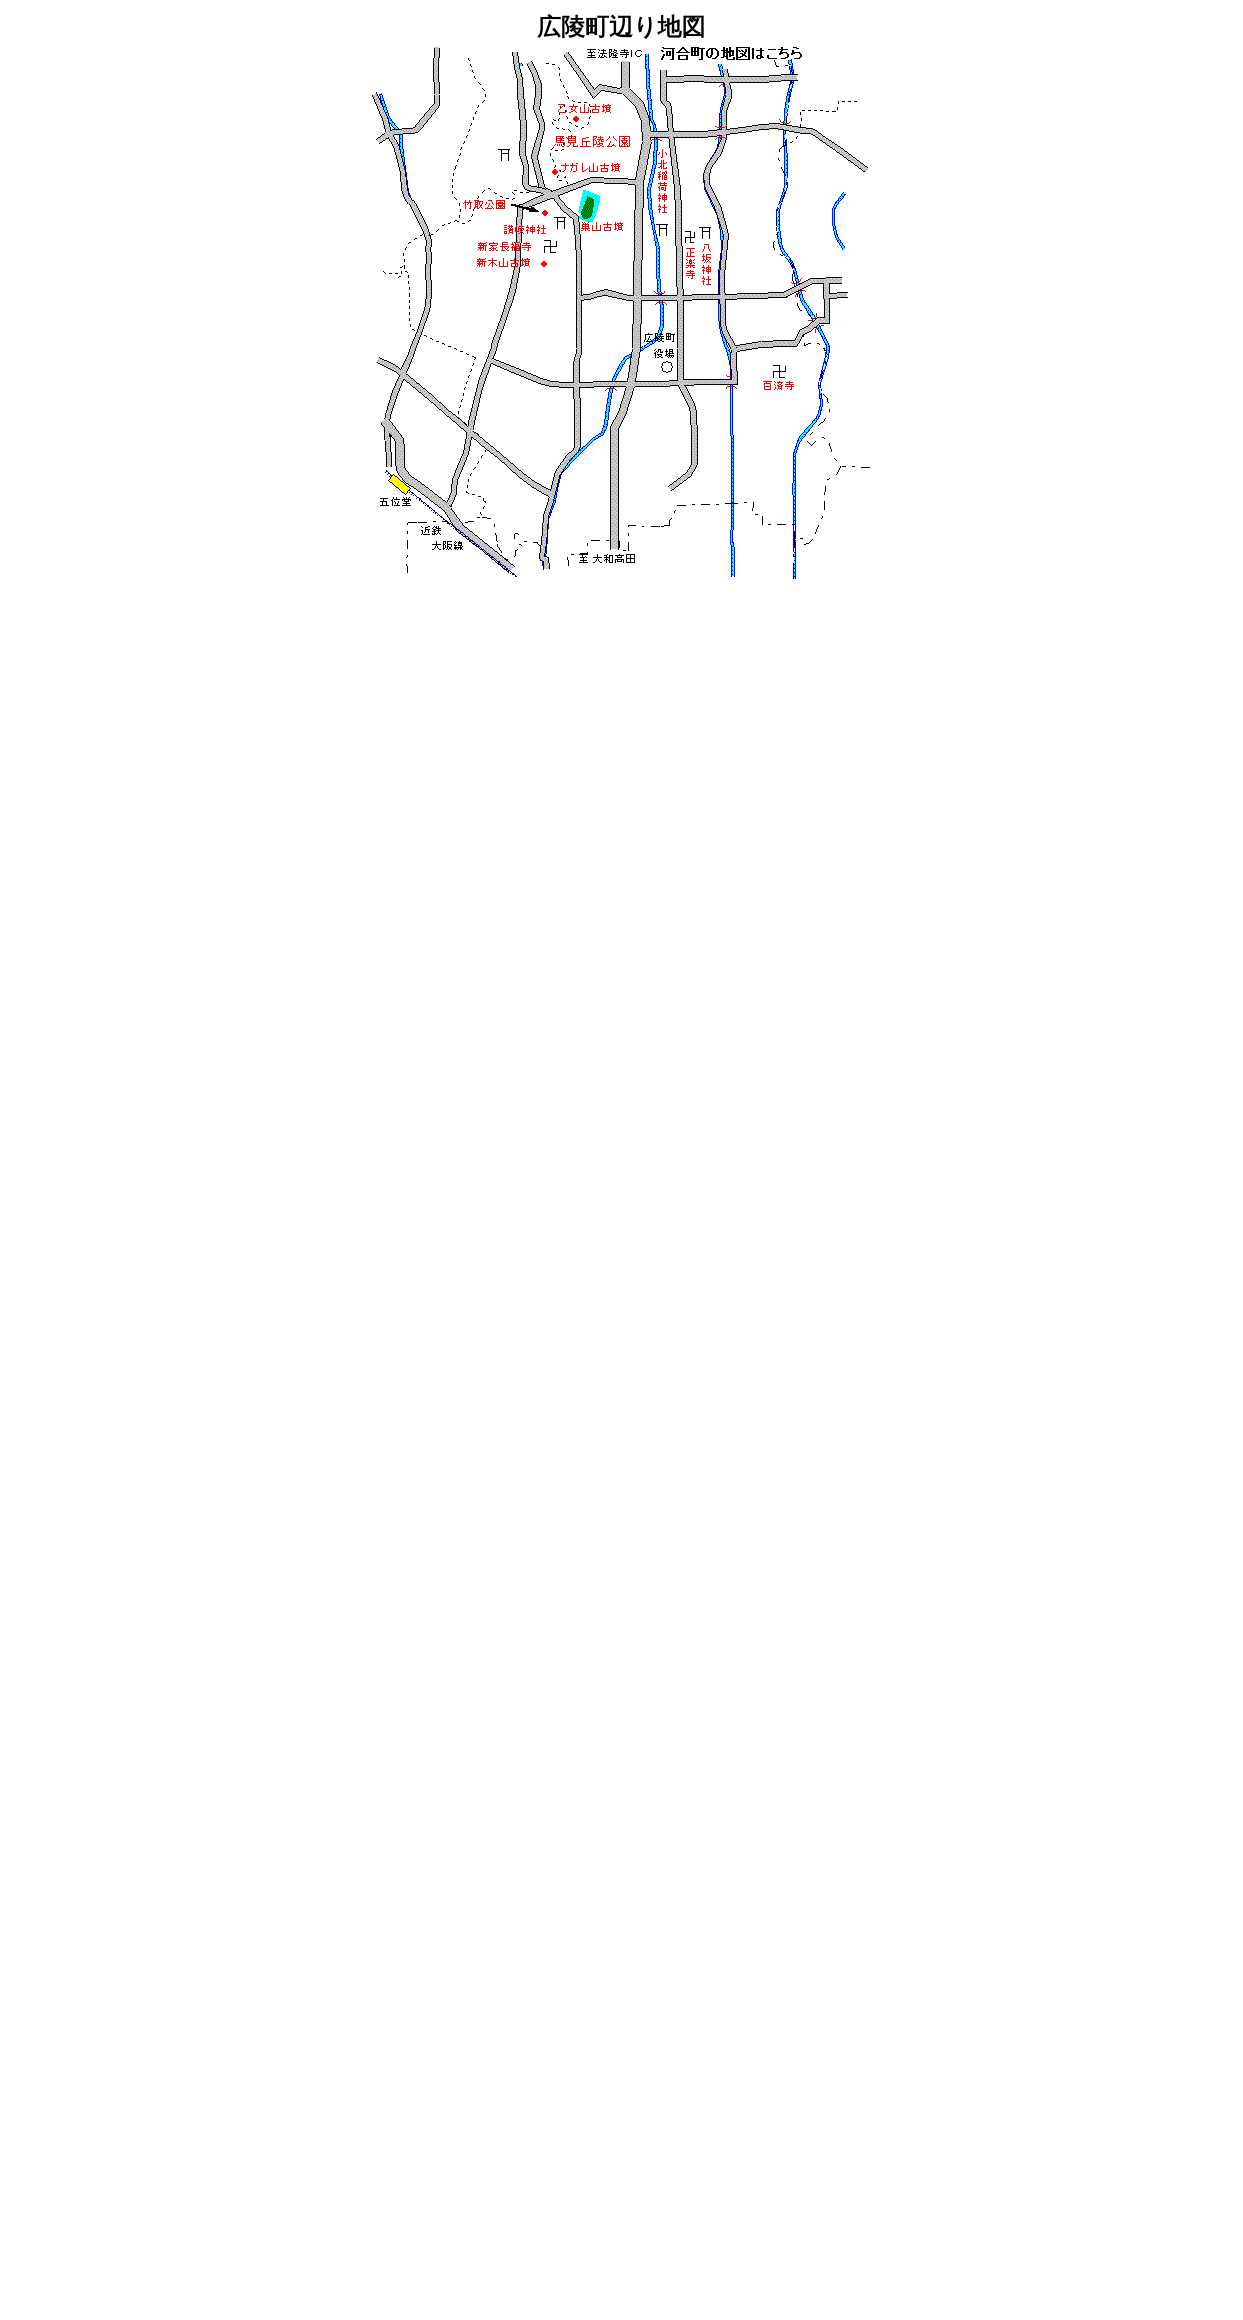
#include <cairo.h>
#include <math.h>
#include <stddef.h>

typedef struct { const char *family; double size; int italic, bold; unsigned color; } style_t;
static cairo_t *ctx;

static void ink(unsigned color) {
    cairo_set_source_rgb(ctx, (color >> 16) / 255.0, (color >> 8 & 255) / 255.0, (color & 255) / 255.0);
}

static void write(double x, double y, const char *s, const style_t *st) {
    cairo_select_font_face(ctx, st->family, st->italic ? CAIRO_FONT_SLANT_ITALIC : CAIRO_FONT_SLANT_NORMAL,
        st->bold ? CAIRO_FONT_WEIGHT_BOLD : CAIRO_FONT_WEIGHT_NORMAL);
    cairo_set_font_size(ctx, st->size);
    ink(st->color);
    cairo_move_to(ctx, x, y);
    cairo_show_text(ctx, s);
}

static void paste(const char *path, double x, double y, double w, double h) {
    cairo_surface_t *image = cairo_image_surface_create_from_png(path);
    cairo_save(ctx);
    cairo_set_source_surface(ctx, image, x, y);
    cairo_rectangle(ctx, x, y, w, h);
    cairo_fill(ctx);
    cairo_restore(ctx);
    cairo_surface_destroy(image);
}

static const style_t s1 = {"WenQuanYi Zen Hei", 24, 0, 1, 0x000000};

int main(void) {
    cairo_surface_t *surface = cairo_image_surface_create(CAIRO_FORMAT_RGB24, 1243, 2320);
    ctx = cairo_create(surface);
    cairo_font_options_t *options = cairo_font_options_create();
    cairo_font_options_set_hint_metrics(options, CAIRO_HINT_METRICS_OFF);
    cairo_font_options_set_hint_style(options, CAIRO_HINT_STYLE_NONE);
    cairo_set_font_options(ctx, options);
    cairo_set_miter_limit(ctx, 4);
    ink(0xffffff);
    cairo_paint(ctx);
    write(537, 35, "広陵町辺り地図", &s1);
    paste("pic1.png", 372, 47, 498, 532);
    cairo_surface_write_to_png(surface, "screenshot.png");
    cairo_font_options_destroy(options);
    cairo_destroy(ctx);
    cairo_surface_destroy(surface);
    return 0;
}
